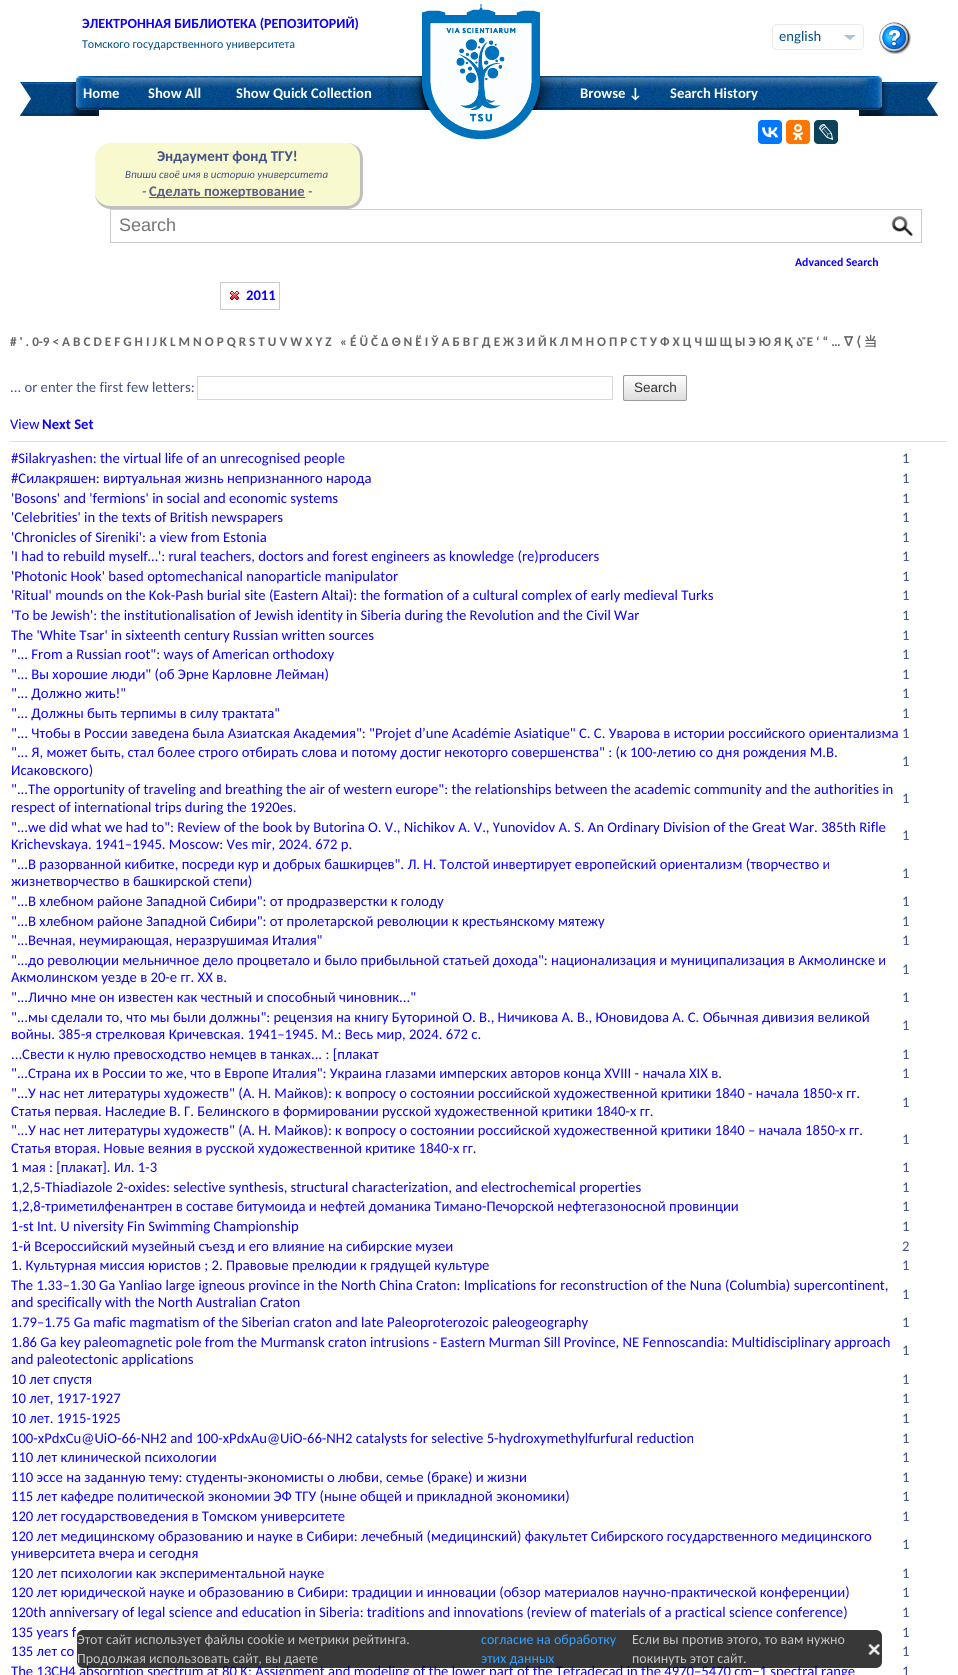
#include <cairo.h>
#include <math.h>
#include <stddef.h>

typedef struct { const char *family; double size; int italic, bold; unsigned color; } style_t;
static cairo_t *ctx;

static void ink(unsigned color) {
    cairo_set_source_rgb(ctx, (color >> 16) / 255.0, (color >> 8 & 255) / 255.0, (color & 255) / 255.0);
}

static void write(double x, double y, const char *s, const style_t *st) {
    cairo_select_font_face(ctx, st->family, st->italic ? CAIRO_FONT_SLANT_ITALIC : CAIRO_FONT_SLANT_NORMAL,
        st->bold ? CAIRO_FONT_WEIGHT_BOLD : CAIRO_FONT_WEIGHT_NORMAL);
    cairo_set_font_size(ctx, st->size);
    ink(st->color);
    cairo_move_to(ctx, x, y);
    cairo_show_text(ctx, s);
}

static void block(double x, double y, double w, double h, unsigned color) {
    ink(color);
    cairo_rectangle(ctx, x, y, w, h);
    cairo_fill(ctx);
}

static void round_path(double x, double y, double w, double h, double r) {
    cairo_new_sub_path(ctx);
    cairo_arc(ctx, x + w - r, y + h - r, r, 0, M_PI / 2);
    cairo_arc(ctx, x + r, y + h - r, r, M_PI / 2, M_PI);
    cairo_arc(ctx, x + r, y + r, r, M_PI, 1.5 * M_PI);
    cairo_arc(ctx, x + w - r, y + r, r, 1.5 * M_PI, 2 * M_PI);
    cairo_close_path(ctx);
}

static void paste(const char *path, double x, double y, double w, double h) {
    cairo_surface_t *image = cairo_image_surface_create_from_png(path);
    cairo_save(ctx);
    cairo_set_source_surface(ctx, image, x, y);
    cairo_rectangle(ctx, x, y, w, h);
    cairo_fill(ctx);
    cairo_restore(ctx);
    cairo_surface_destroy(image);
}

static const style_t s1 = {"Carlito", 14, 0, 1, 0x0c00ff};
static const style_t s2 = {"Carlito", 12, 0, 0, 0x004e8b};
static const style_t s3 = {"Carlito", 14.67, 0, 0, 0x004e8b};
static const style_t s4 = {"Carlito", 14.67, 0, 1, 0xffffff};
static const style_t s5 = {"Carlito", 15, 0, 1, 0x405286};
static const style_t s6 = {"Carlito", 11, 1, 0, 0x405286};
static const style_t s7 = {"Carlito", 14.67, 0, 0, 0x405286};
static const style_t s8 = {"Carlito", 14.67, 0, 1, 0x5d5d86};
static const style_t s9 = {"Liberation Sans", 18, 0, 0, 0x757575};
static const style_t s10 = {"Carlito", 11.75, 0, 1, 0x0c00ff};
static const style_t s11 = {"Carlito", 14.67, 0, 1, 0x0c00ff};
static const style_t s12 = {"Carlito", 13.2, 0, 1, 0x666666};
static const style_t s13 = {"DejaVu Sans", 13.2, 0, 1, 0x666666};
static const style_t s14 = {"WenQuanYi Zen Hei", 13.2, 0, 1, 0x666666};
static const style_t s15 = {"Liberation Sans", 13.5, 0, 0, 0x333333};
static const style_t s16 = {"Carlito", 14.67, 0, 0, 0x0c00ff};
static const style_t s17 = {"Carlito", 14, 0, 0, 0xc7c7c7};
static const style_t s18 = {"Carlito", 14, 0, 0, 0x34a0ff};

int main(void) {
    cairo_surface_t *surface = cairo_image_surface_create(CAIRO_FORMAT_RGB24, 958, 1675);
    ctx = cairo_create(surface);
    cairo_font_options_t *options = cairo_font_options_create();
    cairo_font_options_set_hint_metrics(options, CAIRO_HINT_METRICS_OFF);
    cairo_font_options_set_hint_style(options, CAIRO_HINT_STYLE_NONE);
    cairo_set_font_options(ctx, options);
    cairo_set_miter_limit(ctx, 4);
    cairo_pattern_t *gradient;
    ink(0xffffff);
    cairo_paint(ctx);
    write(82, 28, "ЭЛЕКТРОННАЯ БИБЛИОТЕКА (РЕПОЗИТОРИЙ)", &s1);
    write(82, 48, "Томского государственного университета", &s2);
    round_path(772.5, 24.5, 91, 25, 4.5);
    ink(0xebe9e9);
    cairo_set_line_width(ctx, 1);
    cairo_stroke(ctx);
    paste("pic1.png", 844, 35, 12, 5);
    write(779, 41, "english", &s3);
    paste("pic2.png", 879, 22, 32, 32);
    paste("pic3.png", 20, 76, 95, 40);
    paste("pic4.png", 115, 76, 728, 34);
    write(83, 98, "Home", &s4);
    write(148, 98, "Show All", &s4);
    write(236, 98, "Show Quick Collection", &s4);
    paste("pic5.png", 388, 4, 183, 135);
    write(580, 98, "Browse ↓", &s4);
    write(670, 98, "Search History", &s4);
    paste("pic6.png", 843, 76, 95, 40);
    ink(0xf9f9d0);
    cairo_new_path(ctx);
    cairo_move_to(ctx, 111, 143);
    cairo_line_to(ctx, 347, 143);
    cairo_curve_to(ctx, 354, 143, 360, 150, 360, 159);
    cairo_line_to(ctx, 360, 193);
    cairo_curve_to(ctx, 360, 200, 354, 206, 347, 206);
    cairo_line_to(ctx, 111, 206);
    cairo_curve_to(ctx, 102, 206, 95, 200, 95, 193);
    cairo_line_to(ctx, 95, 159);
    cairo_curve_to(ctx, 95, 150, 102, 143, 111, 143);
    cairo_close_path(ctx);
    cairo_fill(ctx);
    ink(0xc0c0c0);
    cairo_set_fill_rule(ctx, CAIRO_FILL_RULE_EVEN_ODD);
    cairo_new_path(ctx);
    cairo_move_to(ctx, 111, 143);
    cairo_line_to(ctx, 347, 143);
    cairo_curve_to(ctx, 356, 143, 363, 150, 363, 159);
    cairo_line_to(ctx, 363, 193);
    cairo_curve_to(ctx, 363, 202, 356, 209, 347, 209);
    cairo_line_to(ctx, 111, 209);
    cairo_curve_to(ctx, 102, 209, 95, 202, 95, 193);
    cairo_line_to(ctx, 95, 159);
    cairo_curve_to(ctx, 95, 150, 102, 143, 111, 143);
    cairo_close_path(ctx);
    cairo_move_to(ctx, 111, 143);
    cairo_line_to(ctx, 347, 143);
    cairo_curve_to(ctx, 354, 143, 360, 150, 360, 159);
    cairo_line_to(ctx, 360, 193);
    cairo_curve_to(ctx, 360, 200, 354, 206, 347, 206);
    cairo_line_to(ctx, 111, 206);
    cairo_curve_to(ctx, 102, 206, 95, 200, 95, 193);
    cairo_line_to(ctx, 95, 159);
    cairo_curve_to(ctx, 95, 150, 102, 143, 111, 143);
    cairo_close_path(ctx);
    cairo_fill(ctx);
    write(157, 161, "Эндаумент фонд ТГУ!", &s5);
    write(125, 178, "Впиши своё имя в историю университета", &s6);
    write(142, 196, "-", &s7);
    block(149, 197, 156, 1, 0x5d5d86);
    write(149, 196, "Сделать пожертвование", &s8);
    write(308, 196, "-", &s7);
    cairo_rectangle(ctx, 110.5, 209.5, 811, 33);
    ink(0xcccccc);
    cairo_stroke(ctx);
    write(119, 231, "Search", &s9);
    paste("pic7.png", 891, 216, 22, 20);
    write(795, 266, "Advanced Search", &s10);
    cairo_rectangle(ctx, 220.5, 282.5, 59, 27);
    ink(0xcccccc);
    cairo_stroke(ctx);
    paste("pic8.png", 230, 291, 9, 9);
    write(246, 300, "2011", &s11);
    ink(0x0077ff);
    round_path(758, 120, 24, 24, 4);
    cairo_fill(ctx);
    paste("pic9.png", 762, 127, 16, 11);
    ink(0xff7700);
    round_path(786, 120, 24, 24, 4);
    cairo_fill(ctx);
    paste("pic10.png", 792, 124, 12, 16);
    ink(0x0d425a);
    round_path(814, 120, 24, 24, 4);
    cairo_fill(ctx);
    paste("pic11.png", 819, 124, 15, 16);
    write(10, 346, "# ' . 0-9 < A B C D E F G H I J K L M N O P Q R S T U V W X Y Z", &s12);
    write(340, 346, "« É Ü Č Δ Θ Ν Ё І Ў А Б В Г Д Е Ж З И Й К Л М Н О П Р С Т У Ф Х Ц Ч Ш Щ Ы Э Ю Я Қ", &s12);
    write(796, 346, "ა", &s13);
    write(805, 346, "Ἔ ‘ “ …", &s12);
    write(844, 346, "∇", &s13);
    write(856, 346, "⟨", &s13);
    write(864, 346, "当", &s14);
    write(10, 392, "... or enter the first few letters:", &s7);
    cairo_rectangle(ctx, 197.5, 376.5, 415, 23);
    ink(0xd7d7d7);
    cairo_stroke(ctx);
    cairo_save(ctx);
    cairo_set_fill_rule(ctx, CAIRO_FILL_RULE_WINDING);
    round_path(623, 375, 64, 26, 2);
    cairo_clip(ctx);
    gradient = cairo_pattern_create_linear(624, 376, 624, 400);
    cairo_pattern_add_color_stop_rgba(gradient, 0, 1, 1, 1, 1);
    cairo_pattern_add_color_stop_rgba(gradient, 1, 0.867, 0.867, 0.867, 1);
    cairo_set_source(ctx, gradient);
    cairo_pattern_destroy(gradient);
    cairo_rectangle(ctx, 623, 376, 64, 24);
    cairo_fill(ctx);
    cairo_restore(ctx);
    round_path(623.5, 375.5, 63, 25, 1.5);
    ink(0x999999);
    cairo_stroke(ctx);
    write(634, 392, "Search", &s15);
    write(10, 429, "View", &s16);
    write(42, 429, "Next Set", &s11);
    block(10, 441, 937, 1, 0xe0e0e0);
    write(11, 463, "#Silakryashen: the virtual life of an unrecognised people", &s16);
    write(902, 463, "1", &s7);
    write(11, 483, "#Силакряшен: виртуальная жизнь непризнанного народа", &s16);
    write(902, 483, "1", &s7);
    write(11, 503, "'Bosons' and 'fermions' in social and economic systems", &s16);
    write(902, 503, "1", &s7);
    write(11, 522, "'Celebrities' in the texts of British newspapers", &s16);
    write(902, 522, "1", &s7);
    write(11, 542, "'Chronicles of Sireniki': a view from Estonia", &s16);
    write(902, 542, "1", &s7);
    write(11, 561, "'I had to rebuild myself…': rural teachers, doctors and forest engineers as knowledge (re)producers", &s16);
    write(902, 561, "1", &s7);
    write(11, 581, "'Photonic Hook' based optomechanical nanoparticle manipulator", &s16);
    write(902, 581, "1", &s7);
    write(11, 600, "'Ritual' mounds on the Kok-Pash burial site (Eastern Altai): the formation of a cultural complex of early medieval Turks", &s16);
    write(902, 600, "1", &s7);
    write(11, 620, "'To be Jewish': the institutionalisation of Jewish identity in Siberia during the Revolution and the Civil War", &s16);
    write(902, 620, "1", &s7);
    write(11, 640, "The 'White Tsar' in sixteenth century Russian written sources", &s16);
    write(902, 640, "1", &s7);
    write(11, 659, "\"... From a Russian root\": ways of American orthodoxy", &s16);
    write(902, 659, "1", &s7);
    write(11, 679, "\"... Вы хорошие люди\" (об Эрне Карловне Лейман)", &s16);
    write(902, 679, "1", &s7);
    write(11, 698, "\"... Должно жить!\"", &s16);
    write(902, 698, "1", &s7);
    write(11, 718, "\"... Должны быть терпимы в силу трактата\"", &s16);
    write(902, 718, "1", &s7);
    write(11, 738, "\"... Чтобы в России заведена была Азиатская Академия\": \"Projet d’une Académie Asiatique\" С. С. Уварова в истории российского ориентализма", &s16);
    write(902, 738, "1", &s7);
    write(11, 757, "\"... Я, может быть, стал более строго отбирать слова и потому достиг некоторго совершенства\" : (к 100-летию со дня рождения М.В.", &s16);
    write(11, 775, "Исаковского)", &s16);
    write(902, 766, "1", &s7);
    write(11, 794, "\"...The opportunity of traveling and breathing the air of western europe\": the relationships between the academic community and the authorities in", &s16);
    write(11, 812, "respect of international trips during the 1920es.", &s16);
    write(902, 803, "1", &s7);
    write(11, 832, "\"...we did what we had to\": Review of the book by Butorina O. V., Nichikov A. V., Yunovidov A. S. An Ordinary Division of the Great War. 385th Rifle", &s16);
    write(11, 849, "Krichevskaya. 1941–1945. Moscow: Ves mir, 2024. 672 p.", &s16);
    write(902, 840, "1", &s7);
    write(11, 869, "\"...В разорванной кибитке, посреди кур и добрых башкирцев\". Л. Н. Толстой инвертирует европейский ориентализм (творчество и", &s16);
    write(11, 886, "жизнетворчество в башкирской степи)", &s16);
    write(902, 878, "1", &s7);
    write(11, 906, "\"...В хлебном районе Западной Сибири\": от продразверстки к голоду", &s16);
    write(902, 906, "1", &s7);
    write(11, 926, "\"...В хлебном районе Западной Сибири\": от пролетарской революции к крестьянскому мятежу", &s16);
    write(902, 926, "1", &s7);
    write(11, 945, "\"...Вечная, неумирающая, неразрушимая Италия\"", &s16);
    write(902, 945, "1", &s7);
    write(11, 965, "\"...до революции мельничное дело процветало и было прибыльной статьей дохода\": национализация и муниципализация в Акмолинске и", &s16);
    write(11, 982, "Акмолинском уезде в 20-е гг. ХХ в.", &s16);
    write(902, 974, "1", &s7);
    write(11, 1002, "\"...Лично мне он известен как честный и способный чиновник...\"", &s16);
    write(902, 1002, "1", &s7);
    write(11, 1022, "\"...мы сделали то, что мы были должны\": рецензия на книгу Буториной О. В., Ничикова А. В., Юновидова А. С. Обычная дивизия великой", &s16);
    write(11, 1039, "войны. 385-я стрелковая Кричевская. 1941–1945. М.: Весь мир, 2024. 672 с.", &s16);
    write(902, 1030, "1", &s7);
    write(11, 1059, "...Свести к нулю превосходство немцев в танках... : [плакат", &s16);
    write(902, 1059, "1", &s7);
    write(11, 1078, "\"...Страна их в России то же, что в Европе Италия\": Украина глазами имперских авторов конца XVIII - начала XIX в.", &s16);
    write(902, 1078, "1", &s7);
    write(11, 1098, "\"...У нас нет литературы художеств\" (А. Н. Майков): к вопросу о состоянии российской художественной критики 1840 - начала 1850-х гг.", &s16);
    write(11, 1116, "Статья первая. Наследие В. Г. Белинского в формировании русской художественной критики 1840-х гг.", &s16);
    write(902, 1107, "1", &s7);
    write(11, 1135, "\"...У нас нет литературы художеств\" (А. Н. Майков): к вопросу о состоянии российской художественной критики 1840 – начала 1850-х гг.", &s16);
    write(11, 1153, "Статья вторая. Новые веяния в русской художественной критике 1840-х гг.", &s16);
    write(902, 1144, "1", &s7);
    write(11, 1172, "1 мая : [плакат]. Ил. 1-3", &s16);
    write(902, 1172, "1", &s7);
    write(11, 1192, "1,2,5-Thiadiazole 2-oxides: selective synthesis, structural characterization, and electrochemical properties", &s16);
    write(902, 1192, "1", &s7);
    write(11, 1211, "1,2,8-триметилфенантрен в составе битумоида и нефтей доманика Тимано-Печорской нефтегазоносной провинции", &s16);
    write(902, 1211, "1", &s7);
    write(11, 1231, "1-st Int. U niversity Fin Swimming Championship", &s16);
    write(902, 1231, "1", &s7);
    write(11, 1251, "1-й Всероссийский музейный съезд и его влияние на сибирские музеи", &s16);
    write(902, 1251, "2", &s7);
    write(11, 1270, "1. Культурная миссия юристов ; 2. Правовые прелюдии к грядущей культуре", &s16);
    write(902, 1270, "1", &s7);
    write(11, 1290, "The 1.33–1.30 Ga Yanliao large igneous province in the North China Craton: Implications for reconstruction of the Nuna (Columbia) supercontinent,", &s16);
    write(11, 1307, "and specifically with the North Australian Craton", &s16);
    write(902, 1299, "1", &s7);
    write(11, 1327, "1.79–1.75 Ga mafic magmatism of the Siberian craton and late Paleoproterozoic paleogeography", &s16);
    write(902, 1327, "1", &s7);
    write(11, 1347, "1.86 Ga key paleomagnetic pole from the Murmansk craton intrusions - Eastern Murman Sill Province, NE Fennoscandia: Multidisciplinary approach", &s16);
    write(11, 1364, "and paleotectonic applications", &s16);
    write(902, 1355, "1", &s7);
    write(11, 1384, "10 лет спустя", &s16);
    write(902, 1384, "1", &s7);
    write(11, 1403, "10 лет, 1917-1927", &s16);
    write(902, 1403, "1", &s7);
    write(11, 1423, "10 лет. 1915-1925", &s16);
    write(902, 1423, "1", &s7);
    write(11, 1443, "100-xPdxCu@UiO-66-NH2 and 100-xPdxAu@UiO-66-NH2 catalysts for selective 5-hydroxymethylfurfural reduction", &s16);
    write(902, 1443, "1", &s7);
    write(11, 1462, "110 лет клинической психологии", &s16);
    write(902, 1462, "1", &s7);
    write(11, 1482, "110 эссе на заданную тему: студенты-экономисты о любви, семье (браке) и жизни", &s16);
    write(902, 1482, "1", &s7);
    write(11, 1501, "115 лет кафедре политической экономии ЭФ ТГУ (ныне общей и прикладной экономики)", &s16);
    write(902, 1501, "1", &s7);
    write(11, 1521, "120 лет государствоведения в Томском университете", &s16);
    write(902, 1521, "1", &s7);
    write(11, 1541, "120 лет медицинскому образованию и науке в Сибири: лечебный (медицинский) факультет Сибирского государственного медицинского", &s16);
    write(11, 1558, "университета вчера и сегодня", &s16);
    write(902, 1549, "1", &s7);
    write(11, 1578, "120 лет психологии как экспериментальной науке", &s16);
    write(902, 1578, "1", &s7);
    write(11, 1597, "120 лет юридической науке и образованию в Сибири: традиции и инновации (обзор материалов научно-практической конференции)", &s16);
    write(902, 1597, "1", &s7);
    write(11, 1617, "120th anniversary of legal science and education in Siberia: traditions and innovations (review of materials of a practical science conference)", &s16);
    write(902, 1617, "1", &s7);
    write(11, 1637, "135 years f", &s16);
    write(902, 1637, "1", &s7);
    write(11, 1656, "135 лет со", &s16);
    write(902, 1656, "1", &s7);
    write(11, 1676, "The 13CH4 absorption spectrum at 80 K: Assignment and modeling of the lower part of the Tetradecad in the 4970–5470 cm−1 spectral range", &s16);
    write(902, 1676, "1", &s7);
    cairo_set_source_rgba(ctx, 0, 0, 0, 0.78);
    round_path(77, 1630, 805, 38, 6);
    cairo_fill(ctx);
    write(77, 1644, "Этот сайт использует файлы cookie и метрики рейтинга.", &s17);
    write(481, 1644, "согласие на обработку", &s18);
    write(481, 1663, "этих данных", &s18);
    write(632, 1644, "Если вы против этого, то вам нужно", &s17);
    paste("pic12.png", 868, 1644, 12, 11);
    write(77, 1663, "Продолжая использовать сайт, вы даете", &s17);
    write(632, 1663, "покинуть этот сайт.", &s17);
    cairo_surface_write_to_png(surface, "screenshot.png");
    cairo_font_options_destroy(options);
    cairo_destroy(ctx);
    cairo_surface_destroy(surface);
    return 0;
}
